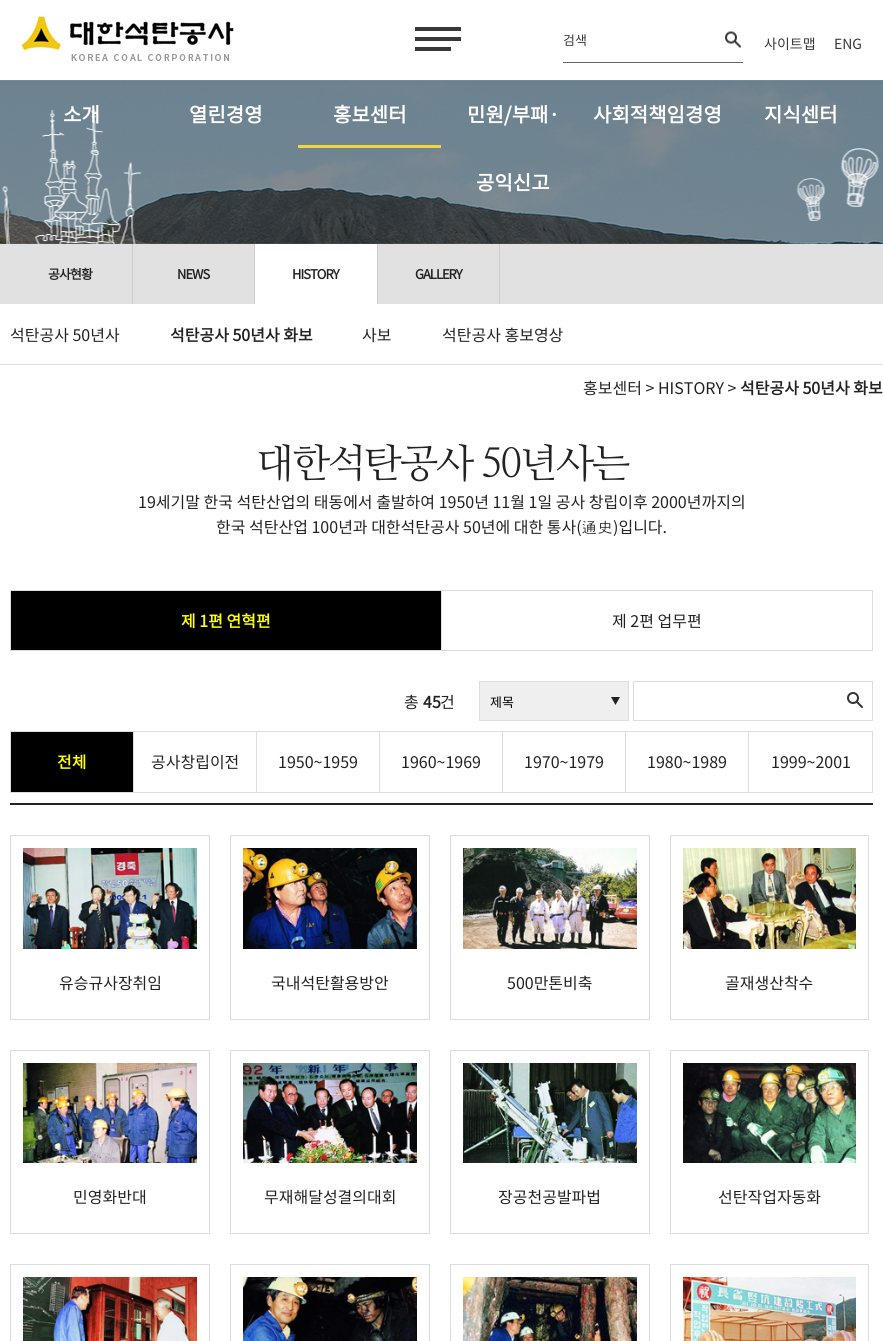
#include <cairo.h>
#include <math.h>
#include <stddef.h>

typedef struct { const char *family; double size; int italic, bold; unsigned color; } style_t;
static cairo_t *ctx;

static void ink(unsigned color) {
    cairo_set_source_rgb(ctx, (color >> 16) / 255.0, (color >> 8 & 255) / 255.0, (color & 255) / 255.0);
}

static void write(double x, double y, const char *s, const style_t *st) {
    cairo_select_font_face(ctx, st->family, st->italic ? CAIRO_FONT_SLANT_ITALIC : CAIRO_FONT_SLANT_NORMAL,
        st->bold ? CAIRO_FONT_WEIGHT_BOLD : CAIRO_FONT_WEIGHT_NORMAL);
    cairo_set_font_size(ctx, st->size);
    ink(st->color);
    cairo_move_to(ctx, x, y);
    cairo_show_text(ctx, s);
}

static void write_spaced(double x, double y, const char *s, double letter, double word) {
    cairo_move_to(ctx, x, y);
    while (*s) {
        char ch[5] = {0};
        int n = 0;
        do ch[n++] = *s++; while ((*s & 0xC0) == 0x80);
        cairo_show_text(ctx, ch);
        cairo_rel_move_to(ctx, letter + word * (*ch == ' '), 0);
    }
}

static void block(double x, double y, double w, double h, unsigned color) {
    ink(color);
    cairo_rectangle(ctx, x, y, w, h);
    cairo_fill(ctx);
}

static void paste(const char *path, double x, double y, double w, double h) {
    cairo_surface_t *image = cairo_image_surface_create_from_png(path);
    cairo_save(ctx);
    cairo_set_source_surface(ctx, image, x, y);
    cairo_rectangle(ctx, x, y, w, h);
    cairo_fill(ctx);
    cairo_restore(ctx);
    cairo_surface_destroy(image);
}

static const style_t s1 = {"Noto Sans KR", 13, 0, 0, 0x383838};
static const style_t s2 = {"Noto Sans KR", 14, 0, 0, 0x383838};
static const style_t s3 = {"Noto Sans KR", 20, 0, 1, 0xffffff};
static const style_t s4 = {"Noto Sans KR", 16, 0, 0, 0x222222};
static const style_t s5 = {"Noto Sans KR", 16, 0, 1, 0x222222};
static const style_t s6 = {"Dotum", 16, 0, 0, 0x222222};
static const style_t s7 = {"Noto Sans KR", 16, 0, 1, 0xffff00};
static const style_t s8 = {"Noto Sans KR", 13, 0, 0, 0x000000};

int main(void) {
    cairo_surface_t *surface = cairo_image_surface_create(CAIRO_FORMAT_RGB24, 883, 1341);
    ctx = cairo_create(surface);
    cairo_font_options_t *options = cairo_font_options_create();
    cairo_font_options_set_hint_metrics(options, CAIRO_HINT_METRICS_OFF);
    cairo_font_options_set_hint_style(options, CAIRO_HINT_STYLE_NONE);
    cairo_set_font_options(ctx, options);
    cairo_set_miter_limit(ctx, 4);
    ink(0xffffff);
    cairo_paint(ctx);
    paste("pic1.png", 20, 15, 214, 46);
    block(415, 37, 46, 4, 0x383838);
    block(415, 27, 46, 4, 0x383838);
    block(415, 47, 36, 4, 0x383838);
    block(563, 62, 180, 1, 0x666666);
    write(563, 45, "검색", &s1);
    paste("pic2.png", 725, 31, 16, 17);
    write(764, 49, "사이트맵", &s2);
    write(834, 49, "ENG", &s2);
    paste("pic3.png", 0, 80, 883, 164);
    write(63, 122, "소개", &s3);
    write(189, 122, "열린경영", &s3);
    write(333, 122, "홍보센터", &s3);
    block(298, 145, 143, 3, 0xf3d342);
    write(467, 122, "민원/부패·", &s3);
    write(476, 190, "공익신고", &s3);
    write(593, 122, "사회적책임경영", &s3);
    write(764, 122, "지식센터", &s3);
    block(0, 244, 883, 60, 0xe1e1e1);
    block(132, 244, 1, 60, 0xcccccc);
    cairo_set_font_size(ctx, 13);
    ink(0x222222);
    write_spaced(48, 279, "공사현황", -1, 0);
    block(254, 244, 1, 60, 0xcccccc);
    ink(0x222222);
    write_spaced(177, 279, "NEWS", -1, 0);
    block(255, 244, 122, 60, 0xffffff);
    block(377, 244, 1, 60, 0xcccccc);
    ink(0x222222);
    write_spaced(292, 279, "HISTORY", -1, 0);
    block(499, 244, 1, 60, 0xcccccc);
    ink(0x222222);
    write_spaced(415, 279, "GALLERY", -1, 0);
    block(0, 364, 883, 1, 0xdddddd);
    write(10, 341, "석탄공사 50년사", &s4);
    write(170, 341, "석탄공사 50년사 화보", &s5);
    write(362, 341, "사보", &s4);
    write(442, 341, "석탄공사 홍보영상", &s4);
    write(583, 394, "홍보센터 > HISTORY >", &s4);
    write(740, 394, "석탄공사 50년사 화보", &s5);
    cairo_select_font_face(ctx, "NanumMyeongjo", CAIRO_FONT_SLANT_NORMAL, CAIRO_FONT_WEIGHT_NORMAL);
    cairo_set_font_size(ctx, 40);
    write_spaced(256, 477, "대한석탄공사 50년사는", -2, 0);
    write(138, 508, "19세기말 한국 석탄산업의 태동에서 출발하여 1950년 11월 1일 공사 창립이후 2000년까지의", &s4);
    write(216, 533, "한국 석탄산업 100년과 대한석탄공사 50년에 대한 통사(", &s4);
    write(581, 533, "通史", &s6);
    write(613, 533, ")입니다.", &s4);
    block(10, 590, 863, 1, 0xdddddd);
    block(10, 590, 1, 61, 0xdddddd);
    block(441, 591, 1, 60, 0xdddddd);
    block(11, 650, 431, 1, 0xdddddd);
    block(11, 591, 430, 59, 0x000000);
    write(181, 627, "제 1편 연혁편", &s7);
    block(872, 591, 1, 60, 0xdddddd);
    block(442, 650, 431, 1, 0xdddddd);
    write(612, 627, "제 2편 업무편", &s4);
    write(404, 708, "총", &s4);
    write(423, 708, "45", &s5);
    write(440, 708, "건", &s4);
    cairo_rectangle(ctx, 479.5, 681.5, 149, 39);
    ink(0xdddddd);
    cairo_set_line_width(ctx, 1);
    cairo_stroke(ctx);
    block(480, 682, 148, 38, 0xefefef);
    paste("pic4.png", 611, 697, 9, 8);
    write(490, 707, "제목", &s8);
    cairo_rectangle(ctx, 633.5, 681.5, 239, 39);
    ink(0xdddddd);
    cairo_stroke(ctx);
    paste("pic5.png", 847, 692, 16, 16);
    block(10, 731, 863, 1, 0xdddddd);
    block(10, 731, 1, 62, 0xdddddd);
    block(133, 732, 1, 61, 0xdddddd);
    block(11, 792, 123, 1, 0xdddddd);
    block(11, 732, 122, 60, 0x000000);
    write(57, 768, "전체", &s7);
    block(256, 732, 1, 61, 0xdddddd);
    block(134, 792, 123, 1, 0xdddddd);
    write(151, 768, "공사창립이전", &s4);
    block(379, 732, 1, 61, 0xdddddd);
    block(257, 792, 123, 1, 0xdddddd);
    write(278, 768, "1950~1959", &s4);
    block(502, 732, 1, 61, 0xdddddd);
    block(380, 792, 123, 1, 0xdddddd);
    write(401, 768, "1960~1969", &s4);
    block(625, 732, 1, 61, 0xdddddd);
    block(503, 792, 123, 1, 0xdddddd);
    write(524, 768, "1970~1979", &s4);
    block(748, 732, 1, 61, 0xdddddd);
    block(626, 792, 123, 1, 0xdddddd);
    write(647, 768, "1980~1989", &s4);
    block(872, 732, 1, 61, 0xdddddd);
    block(749, 792, 124, 1, 0xdddddd);
    write(771, 768, "1999~2001", &s4);
    block(10, 803, 863, 2, 0x222222);
    cairo_rectangle(ctx, 10.5, 835.5, 199, 184);
    ink(0xdddddd);
    cairo_stroke(ctx);
    paste("pic6.png", 23, 848, 174, 101);
    write(59, 989, "유승규사장취임", &s4);
    cairo_rectangle(ctx, 230.5, 835.5, 199, 184);
    ink(0xdddddd);
    cairo_stroke(ctx);
    paste("pic7.png", 243, 848, 174, 101);
    write(271, 989, "국내석탄활용방안", &s4);
    cairo_rectangle(ctx, 450.5, 835.5, 199, 184);
    ink(0xdddddd);
    cairo_stroke(ctx);
    paste("pic8.png", 463, 848, 174, 101);
    write(507, 989, "500만톤비축", &s4);
    cairo_rectangle(ctx, 670.5, 835.5, 198, 184);
    ink(0xdddddd);
    cairo_stroke(ctx);
    paste("pic9.png", 683, 848, 173, 101);
    write(725, 989, "골재생산착수", &s4);
    cairo_rectangle(ctx, 10.5, 1050.5, 199, 183);
    ink(0xdddddd);
    cairo_stroke(ctx);
    paste("pic10.png", 23, 1063, 174, 100);
    write(73, 1203, "민영화반대", &s4);
    cairo_rectangle(ctx, 230.5, 1050.5, 199, 183);
    ink(0xdddddd);
    cairo_stroke(ctx);
    paste("pic11.png", 243, 1063, 174, 100);
    write(264, 1203, "무재해달성결의대회", &s4);
    cairo_rectangle(ctx, 450.5, 1050.5, 199, 183);
    ink(0xdddddd);
    cairo_stroke(ctx);
    paste("pic12.png", 463, 1063, 174, 100);
    write(498, 1203, "장공천공발파법", &s4);
    cairo_rectangle(ctx, 670.5, 1050.5, 198, 183);
    ink(0xdddddd);
    cairo_stroke(ctx);
    paste("pic13.png", 683, 1063, 173, 100);
    write(718, 1203, "선탄작업자동화", &s4);
    cairo_rectangle(ctx, 10.5, 1264.5, 199, 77);
    ink(0xdddddd);
    cairo_stroke(ctx);
    paste("pic14.png", 23, 1277, 174, 64);
    cairo_rectangle(ctx, 230.5, 1264.5, 199, 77);
    cairo_stroke(ctx);
    paste("pic15.png", 243, 1277, 174, 64);
    cairo_rectangle(ctx, 450.5, 1264.5, 199, 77);
    cairo_stroke(ctx);
    paste("pic16.png", 463, 1277, 174, 64);
    cairo_rectangle(ctx, 670.5, 1264.5, 198, 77);
    cairo_stroke(ctx);
    paste("pic17.png", 683, 1277, 173, 64);
    cairo_surface_write_to_png(surface, "screenshot.png");
    cairo_font_options_destroy(options);
    cairo_destroy(ctx);
    cairo_surface_destroy(surface);
    return 0;
}
